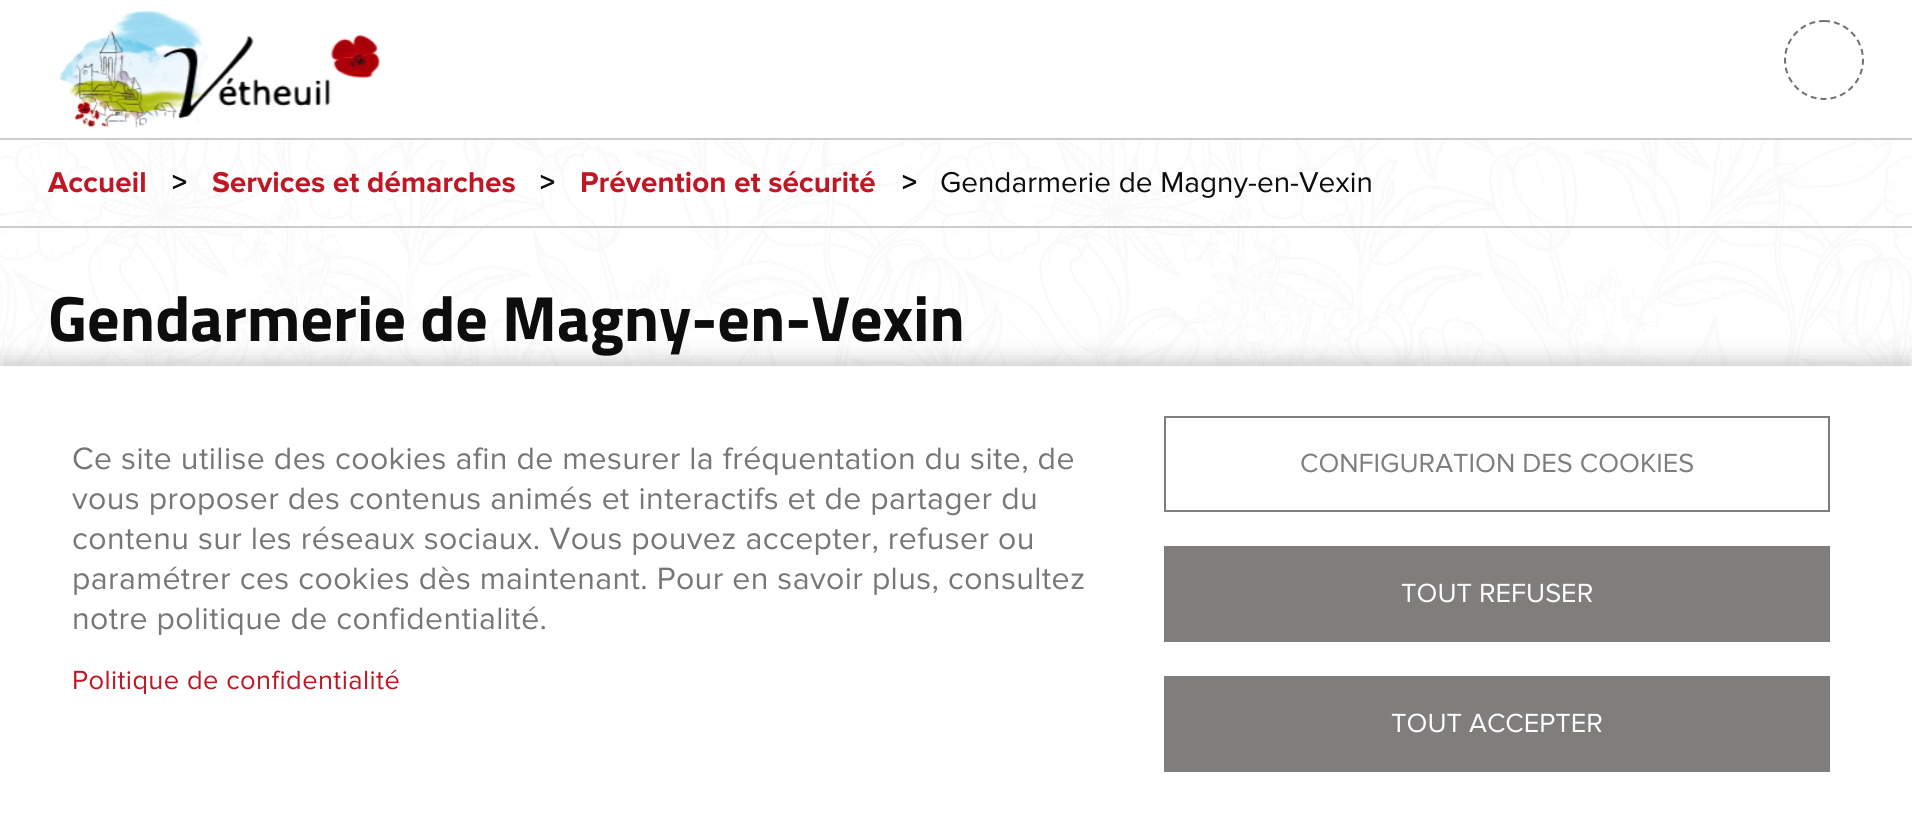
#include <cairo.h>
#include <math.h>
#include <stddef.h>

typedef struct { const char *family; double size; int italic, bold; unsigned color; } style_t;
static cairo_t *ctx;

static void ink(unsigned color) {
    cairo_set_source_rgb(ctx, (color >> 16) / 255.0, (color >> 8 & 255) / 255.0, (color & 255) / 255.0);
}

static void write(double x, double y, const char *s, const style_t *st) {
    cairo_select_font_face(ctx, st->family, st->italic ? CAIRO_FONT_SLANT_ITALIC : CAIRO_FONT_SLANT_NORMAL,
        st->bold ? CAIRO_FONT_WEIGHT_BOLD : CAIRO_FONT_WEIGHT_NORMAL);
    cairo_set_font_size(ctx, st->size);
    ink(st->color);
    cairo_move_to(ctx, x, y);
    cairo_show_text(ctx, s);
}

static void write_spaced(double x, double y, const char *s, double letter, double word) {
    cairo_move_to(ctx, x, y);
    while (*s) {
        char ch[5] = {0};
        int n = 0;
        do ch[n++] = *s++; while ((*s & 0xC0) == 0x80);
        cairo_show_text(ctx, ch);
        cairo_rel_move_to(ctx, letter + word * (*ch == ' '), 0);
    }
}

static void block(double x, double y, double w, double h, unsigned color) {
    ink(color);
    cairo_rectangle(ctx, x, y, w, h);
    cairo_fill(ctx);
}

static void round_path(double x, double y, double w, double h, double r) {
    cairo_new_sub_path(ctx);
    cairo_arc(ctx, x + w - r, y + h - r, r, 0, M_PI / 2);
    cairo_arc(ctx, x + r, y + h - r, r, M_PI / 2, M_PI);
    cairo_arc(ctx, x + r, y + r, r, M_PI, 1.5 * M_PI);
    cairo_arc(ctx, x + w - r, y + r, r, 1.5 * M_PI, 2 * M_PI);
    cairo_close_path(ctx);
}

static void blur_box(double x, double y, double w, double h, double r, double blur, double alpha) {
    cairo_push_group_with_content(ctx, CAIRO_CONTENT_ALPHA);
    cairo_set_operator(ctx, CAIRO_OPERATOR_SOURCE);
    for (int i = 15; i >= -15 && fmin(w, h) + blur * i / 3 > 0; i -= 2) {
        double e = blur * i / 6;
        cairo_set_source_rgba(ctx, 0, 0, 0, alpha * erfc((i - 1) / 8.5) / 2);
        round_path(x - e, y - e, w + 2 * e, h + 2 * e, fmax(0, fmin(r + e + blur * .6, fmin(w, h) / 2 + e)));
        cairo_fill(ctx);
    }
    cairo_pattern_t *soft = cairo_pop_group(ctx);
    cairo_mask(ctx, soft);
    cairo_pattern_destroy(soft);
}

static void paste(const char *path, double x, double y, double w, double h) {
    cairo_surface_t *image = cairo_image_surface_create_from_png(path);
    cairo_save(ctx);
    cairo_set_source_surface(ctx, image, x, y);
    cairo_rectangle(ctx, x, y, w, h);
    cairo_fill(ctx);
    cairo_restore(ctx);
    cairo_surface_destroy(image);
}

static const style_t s1 = {"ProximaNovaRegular", 29.75, 0, 0, 0x0d0d0d};
static const style_t s2 = {"Titillium Web", 64, 0, 1, 0x0d0d0d};
static const style_t s3 = {"ProximaNovaRegular", 27.25, 0, 0, 0x807d7d};
static const style_t s4 = {"ProximaNovaRegular", 27.25, 0, 0, 0xffffff};

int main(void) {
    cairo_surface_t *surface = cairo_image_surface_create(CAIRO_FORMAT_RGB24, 1912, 820);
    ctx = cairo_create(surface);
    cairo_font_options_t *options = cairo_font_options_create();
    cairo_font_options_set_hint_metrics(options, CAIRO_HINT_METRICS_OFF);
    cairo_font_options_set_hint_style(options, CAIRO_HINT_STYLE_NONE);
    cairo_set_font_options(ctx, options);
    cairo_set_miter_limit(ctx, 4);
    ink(0xffffff);
    cairo_paint(ctx);
    block(0, 138, 1912, 2, 0xcccccc);
    paste("pic1.png", 60, 10, 320, 119);
    cairo_new_path(ctx);
    cairo_move_to(ctx, 1824, 21);
    cairo_curve_to(ctx, 1845.5, 21, 1863, 38.5, 1863, 60);
    cairo_curve_to(ctx, 1863, 81.5, 1845.5, 99, 1824, 99);
    cairo_curve_to(ctx, 1802.5, 99, 1785, 81.5, 1785, 60);
    cairo_curve_to(ctx, 1785, 38.5, 1802.5, 21, 1824, 21);
    cairo_close_path(ctx);
    ink(0x707070);
    cairo_set_dash(ctx, (double[]){6, 4}, 2, 0);
    cairo_stroke(ctx);
    paste("pic2.png", 0, 140, 1912, 226);
    block(0, 226, 1912, 2, 0xcccccc);
    paste("pic3.png", 48, 171, 97, 22);
    paste("pic4.png", 172, 174, 15, 16);
    paste("pic5.png", 212, 171, 303, 22);
    paste("pic6.png", 540, 174, 15, 16);
    paste("pic7.png", 581, 171, 294, 22);
    paste("pic8.png", 902, 174, 15, 16);
    write(940, 192, "Gendarmerie de Magny-en-Vexin", &s1);
    write(48, 341, "Gendarmerie de Magny-en-Vexin", &s2);
    ink(0x000000);
    blur_box(0, 360, 1912, 454, 0, 10, 0.2);
    block(0, 366, 1912, 454, 0xffffff);
    cairo_select_font_face(ctx, "ProximaNovaRegular", CAIRO_FONT_SLANT_NORMAL, CAIRO_FONT_WEIGHT_NORMAL);
    cairo_set_font_size(ctx, 32);
    ink(0x797676);
    write_spaced(72, 469, "Ce site utilise des cookies afin de mesurer la fréquentation du site, de", 0.4, 0);
    write_spaced(72, 509, "vous proposer des contenus animés et interactifs et de partager du", 0.4, 0);
    write_spaced(72, 549, "contenu sur les réseaux sociaux. Vous pouvez accepter, refuser ou", 0.4, 0);
    write_spaced(72, 589, "paramétrer ces cookies dès maintenant. Pour en savoir plus, consultez", 0.4, 0);
    write_spaced(72, 629, "notre politique de confidentialité.", 0.4, 0);
    cairo_set_font_size(ctx, 27.25);
    ink(0xbf1725);
    write_spaced(72, 689, "Politique de confidentialité", 0.4, 0);
    cairo_rectangle(ctx, 1165, 417, 664, 94);
    ink(0x807d7d);
    cairo_set_dash(ctx, NULL, 0, 0);
    cairo_stroke(ctx);
    write(1300, 472, "CONFIGURATION DES COOKIES", &s3);
    block(1164, 546, 666, 96, 0x807d7d);
    write(1401, 602, "TOUT REFUSER", &s4);
    block(1164, 676, 666, 96, 0x807d7d);
    write(1391, 732, "TOUT ACCEPTER", &s4);
    cairo_surface_write_to_png(surface, "screenshot.png");
    cairo_font_options_destroy(options);
    cairo_destroy(ctx);
    cairo_surface_destroy(surface);
    return 0;
}
